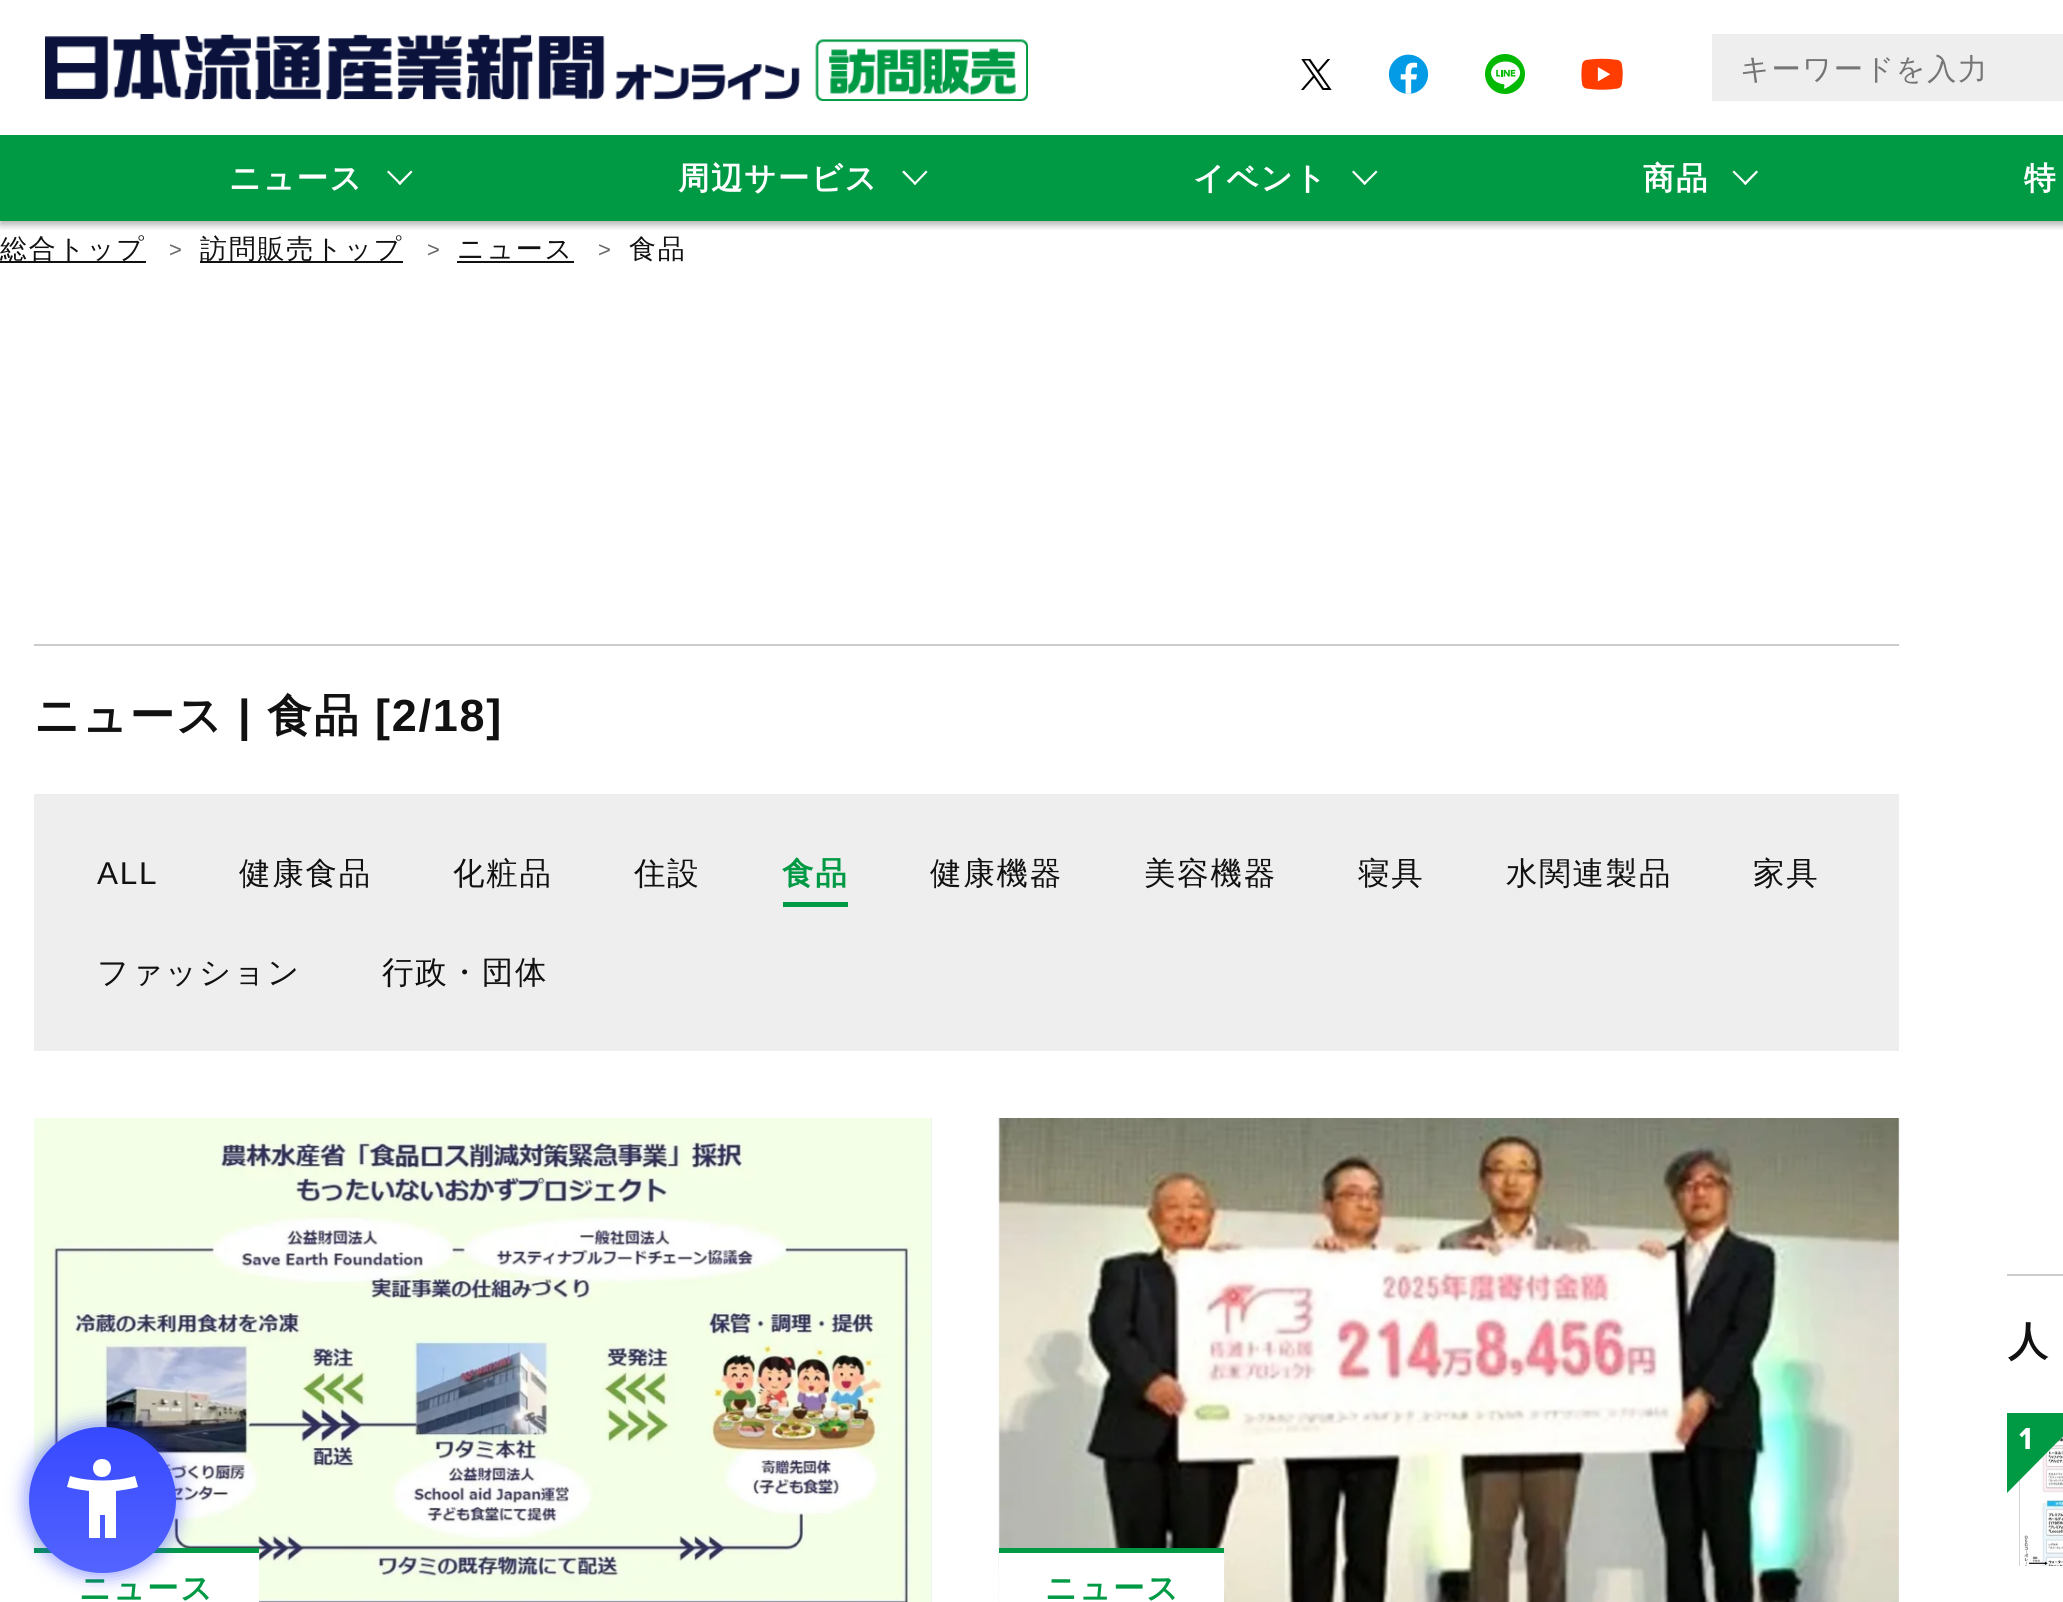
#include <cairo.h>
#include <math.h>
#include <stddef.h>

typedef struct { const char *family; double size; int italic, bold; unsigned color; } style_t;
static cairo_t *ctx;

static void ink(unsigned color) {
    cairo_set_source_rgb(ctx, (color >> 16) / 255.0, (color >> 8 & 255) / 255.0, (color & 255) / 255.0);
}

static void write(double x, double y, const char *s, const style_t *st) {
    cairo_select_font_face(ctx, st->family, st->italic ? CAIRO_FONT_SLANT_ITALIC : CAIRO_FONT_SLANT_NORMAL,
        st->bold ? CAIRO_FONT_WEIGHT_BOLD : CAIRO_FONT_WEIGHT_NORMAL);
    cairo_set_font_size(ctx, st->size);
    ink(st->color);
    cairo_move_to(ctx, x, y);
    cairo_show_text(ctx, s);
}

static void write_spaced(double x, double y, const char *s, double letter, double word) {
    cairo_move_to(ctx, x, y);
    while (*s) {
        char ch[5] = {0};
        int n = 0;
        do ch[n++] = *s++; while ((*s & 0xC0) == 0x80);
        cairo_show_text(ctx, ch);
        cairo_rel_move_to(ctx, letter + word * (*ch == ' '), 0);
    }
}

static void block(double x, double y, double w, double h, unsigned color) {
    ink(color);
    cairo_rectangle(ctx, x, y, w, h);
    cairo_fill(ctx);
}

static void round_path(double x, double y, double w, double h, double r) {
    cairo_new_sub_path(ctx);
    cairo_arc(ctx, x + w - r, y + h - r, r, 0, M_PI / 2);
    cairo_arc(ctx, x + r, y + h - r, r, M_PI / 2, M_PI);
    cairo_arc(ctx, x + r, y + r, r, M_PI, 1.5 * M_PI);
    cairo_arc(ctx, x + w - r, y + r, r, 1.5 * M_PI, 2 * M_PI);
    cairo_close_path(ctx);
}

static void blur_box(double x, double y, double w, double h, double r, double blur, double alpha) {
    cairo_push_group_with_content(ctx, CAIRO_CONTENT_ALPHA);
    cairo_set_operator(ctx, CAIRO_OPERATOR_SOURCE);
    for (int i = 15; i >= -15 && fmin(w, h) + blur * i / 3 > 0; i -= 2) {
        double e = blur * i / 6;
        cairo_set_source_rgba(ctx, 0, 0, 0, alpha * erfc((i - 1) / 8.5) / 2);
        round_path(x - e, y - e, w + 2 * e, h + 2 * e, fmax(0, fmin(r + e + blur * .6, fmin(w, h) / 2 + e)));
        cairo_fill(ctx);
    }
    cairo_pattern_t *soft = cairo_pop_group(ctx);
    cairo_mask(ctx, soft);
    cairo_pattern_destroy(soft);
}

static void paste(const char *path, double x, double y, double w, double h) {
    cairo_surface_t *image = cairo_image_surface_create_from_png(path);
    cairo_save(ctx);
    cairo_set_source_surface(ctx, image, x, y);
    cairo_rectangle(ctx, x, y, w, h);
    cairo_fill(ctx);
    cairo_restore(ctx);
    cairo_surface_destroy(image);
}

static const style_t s1 = {"Proxima Nova", 31.5, 0, 1, 0xffffff};

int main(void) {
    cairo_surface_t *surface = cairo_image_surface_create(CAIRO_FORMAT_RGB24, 2063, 1602);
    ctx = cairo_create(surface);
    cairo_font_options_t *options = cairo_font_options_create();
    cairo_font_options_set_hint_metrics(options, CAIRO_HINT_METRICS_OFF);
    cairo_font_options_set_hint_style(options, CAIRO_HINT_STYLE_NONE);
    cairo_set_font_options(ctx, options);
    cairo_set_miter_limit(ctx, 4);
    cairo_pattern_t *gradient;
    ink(0xffffff);
    cairo_paint(ctx);
    cairo_save(ctx);
    cairo_rectangle(ctx, 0, 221, 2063, 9);
    cairo_clip(ctx);
    ink(0x000000);
    blur_box(0, 5, 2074, 220, 0, 3.5, 0.3);
    cairo_restore(ctx);
    paste("pic1.png", 45, 34, 983, 67);
    paste("pic2.png", 1301, 59, 31, 31);
    paste("pic3.png", 1388, 54, 41, 40);
    paste("pic4.png", 1485, 54, 40, 40);
    paste("pic5.png", 1581, 58, 42, 32);
    block(1712, 34, 351, 67, 0xeeeeee);
    cairo_select_font_face(ctx, "WenQuanYi Zen Hei Medium", CAIRO_FONT_SLANT_NORMAL, CAIRO_FONT_WEIGHT_NORMAL);
    cairo_set_font_size(ctx, 29.25);
    ink(0x757575);
    write_spaced(1740, 79, "キーワードを入力", 1.5, 0);
    block(0, 135, 2063, 86, 0x009944);
    cairo_select_font_face(ctx, "WenQuanYi Zen Hei", CAIRO_FONT_SLANT_NORMAL, CAIRO_FONT_WEIGHT_BOLD);
    cairo_set_font_size(ctx, 31.5);
    ink(0xffffff);
    write_spaced(229, 189, "ニュース", 1.5, 0);
    cairo_new_path(ctx);
    cairo_move_to(ctx, 411, 170.5);
    cairo_line_to(ctx, 412.5, 172);
    cairo_line_to(ctx, 400, 185);
    cairo_line_to(ctx, 398, 183.5);
    cairo_close_path(ctx);
    cairo_fill(ctx);
    cairo_new_path(ctx);
    cairo_move_to(ctx, 388.5, 170.5);
    cairo_line_to(ctx, 401.5, 183.5);
    cairo_line_to(ctx, 400, 185);
    cairo_line_to(ctx, 387, 172);
    cairo_close_path(ctx);
    cairo_fill(ctx);
    write_spaced(678, 189, "周辺サービス", 1.5, 0);
    cairo_new_path(ctx);
    cairo_move_to(ctx, 926, 170.5);
    cairo_line_to(ctx, 927.5, 172);
    cairo_line_to(ctx, 915, 185);
    cairo_line_to(ctx, 913.5, 183.5);
    cairo_close_path(ctx);
    cairo_fill(ctx);
    cairo_new_path(ctx);
    cairo_move_to(ctx, 904, 170.5);
    cairo_line_to(ctx, 916.5, 183.5);
    cairo_line_to(ctx, 915, 185);
    cairo_line_to(ctx, 902, 172);
    cairo_close_path(ctx);
    cairo_fill(ctx);
    write_spaced(1193, 189, "イベント", 1.5, 0);
    cairo_new_path(ctx);
    cairo_move_to(ctx, 1376, 170.5);
    cairo_line_to(ctx, 1377.5, 172);
    cairo_line_to(ctx, 1364.5, 185);
    cairo_line_to(ctx, 1363, 183.5);
    cairo_close_path(ctx);
    cairo_fill(ctx);
    cairo_new_path(ctx);
    cairo_move_to(ctx, 1353.5, 170.5);
    cairo_line_to(ctx, 1366.5, 183.5);
    cairo_line_to(ctx, 1364.5, 185);
    cairo_line_to(ctx, 1352, 172);
    cairo_close_path(ctx);
    cairo_fill(ctx);
    write_spaced(1643, 189, "商品", 1.5, 0);
    cairo_new_path(ctx);
    cairo_move_to(ctx, 1756.5, 170.5);
    cairo_line_to(ctx, 1758, 172);
    cairo_line_to(ctx, 1745.5, 185);
    cairo_line_to(ctx, 1743.5, 183.5);
    cairo_close_path(ctx);
    cairo_fill(ctx);
    cairo_new_path(ctx);
    cairo_move_to(ctx, 1734, 170.5);
    cairo_line_to(ctx, 1747, 183.5);
    cairo_line_to(ctx, 1745.5, 185);
    cairo_line_to(ctx, 1732.5, 172);
    cairo_close_path(ctx);
    cairo_fill(ctx);
    write_spaced(2024, 189, "特", 1.5, 0);
    block(0, 261, 146, 2, 0x111111);
    cairo_select_font_face(ctx, "WenQuanYi Zen Hei Medium", CAIRO_FONT_SLANT_NORMAL, CAIRO_FONT_WEIGHT_NORMAL);
    cairo_set_font_size(ctx, 27);
    write_spaced(0, 258, "総合トップ", 1.75, 0);
    cairo_select_font_face(ctx, "Liberation Sans", CAIRO_FONT_SLANT_NORMAL, CAIRO_FONT_WEIGHT_NORMAL);
    cairo_set_font_size(ctx, 22);
    ink(0x666666);
    write_spaced(169, 257, ">", 1.75, 0);
    block(200, 261, 203, 2, 0x111111);
    cairo_select_font_face(ctx, "WenQuanYi Zen Hei Medium", CAIRO_FONT_SLANT_NORMAL, CAIRO_FONT_WEIGHT_NORMAL);
    cairo_set_font_size(ctx, 27);
    write_spaced(200, 258, "訪問販売トップ", 1.75, 0);
    cairo_select_font_face(ctx, "Liberation Sans", CAIRO_FONT_SLANT_NORMAL, CAIRO_FONT_WEIGHT_NORMAL);
    cairo_set_font_size(ctx, 22);
    ink(0x666666);
    write_spaced(427, 257, ">", 1.75, 0);
    cairo_select_font_face(ctx, "WenQuanYi Zen Hei Medium", CAIRO_FONT_SLANT_NORMAL, CAIRO_FONT_WEIGHT_NORMAL);
    cairo_set_font_size(ctx, 27);
    ink(0x111111);
    write_spaced(457, 258, "ニュース", 1.75, 0);
    block(457, 261, 117, 2, 0x111111);
    cairo_select_font_face(ctx, "Liberation Sans", CAIRO_FONT_SLANT_NORMAL, CAIRO_FONT_WEIGHT_NORMAL);
    cairo_set_font_size(ctx, 22);
    ink(0x666666);
    write_spaced(598, 257, ">", 1.75, 0);
    cairo_select_font_face(ctx, "WenQuanYi Zen Hei Medium", CAIRO_FONT_SLANT_NORMAL, CAIRO_FONT_WEIGHT_NORMAL);
    cairo_set_font_size(ctx, 27);
    ink(0x111111);
    write_spaced(629, 258, "食品", 1.75, 0);
    block(34, 644, 1865, 2, 0xcccccc);
    cairo_select_font_face(ctx, "WenQuanYi Zen Hei", CAIRO_FONT_SLANT_NORMAL, CAIRO_FONT_WEIGHT_BOLD);
    cairo_set_font_size(ctx, 45);
    ink(0x111111);
    write_spaced(34, 731, "ニュース", 1.75, 0);
    cairo_select_font_face(ctx, "Liberation Sans", CAIRO_FONT_SLANT_NORMAL, CAIRO_FONT_WEIGHT_BOLD);
    write_spaced(238, 731, "|", 1.75, 0);
    cairo_select_font_face(ctx, "WenQuanYi Zen Hei", CAIRO_FONT_SLANT_NORMAL, CAIRO_FONT_WEIGHT_BOLD);
    write_spaced(267, 731, "食品", 1.75, 0);
    cairo_select_font_face(ctx, "Liberation Sans", CAIRO_FONT_SLANT_NORMAL, CAIRO_FONT_WEIGHT_BOLD);
    write_spaced(375, 731, "[2/18]", 1.75, 0);
    block(34, 794, 1865, 257, 0xeeeeee);
    cairo_select_font_face(ctx, "Liberation Sans", CAIRO_FONT_SLANT_NORMAL, CAIRO_FONT_WEIGHT_NORMAL);
    cairo_set_font_size(ctx, 31.5);
    ink(0x111111);
    write_spaced(97, 884, "ALL", 1.75, 0);
    cairo_select_font_face(ctx, "WenQuanYi Zen Hei Medium", CAIRO_FONT_SLANT_NORMAL, CAIRO_FONT_WEIGHT_NORMAL);
    write_spaced(239, 884, "健康食品", 1.75, 0);
    write_spaced(453, 884, "化粧品", 1.75, 0);
    write_spaced(634, 884, "住設", 1.75, 0);
    cairo_select_font_face(ctx, "WenQuanYi Zen Hei", CAIRO_FONT_SLANT_NORMAL, CAIRO_FONT_WEIGHT_BOLD);
    ink(0x009944);
    write_spaced(782, 884, "食品", 1.75, 0);
    block(783, 902, 65, 5, 0x009944);
    cairo_select_font_face(ctx, "WenQuanYi Zen Hei Medium", CAIRO_FONT_SLANT_NORMAL, CAIRO_FONT_WEIGHT_NORMAL);
    ink(0x111111);
    write_spaced(930, 884, "健康機器", 1.75, 0);
    write_spaced(1144, 884, "美容機器", 1.75, 0);
    write_spaced(1358, 884, "寝具", 1.75, 0);
    write_spaced(1506, 884, "水関連製品", 1.75, 0);
    write_spaced(1753, 884, "家具", 1.75, 0);
    write_spaced(97, 983, "ファッション", 1.75, 0);
    write_spaced(382, 983, "行政・団体", 1.75, 0);
    block(930, 1118, 2, 484, 0xeeeeee);
    paste("pic6.png", 34, 1118, 898, 484);
    block(34, 1553, 225, 49, 0xffffff);
    block(34, 1548, 225, 5, 0x009944);
    cairo_select_font_face(ctx, "WenQuanYi Zen Hei", CAIRO_FONT_SLANT_NORMAL, CAIRO_FONT_WEIGHT_BOLD);
    write_spaced(79, 1599, "ニュース", 1.75, 0);
    block(999, 1118, 900, 484, 0xeeeeee);
    paste("pic7.png", 998, 1118, 902, 484);
    block(999, 1553, 225, 49, 0xffffff);
    block(999, 1548, 225, 5, 0x009944);
    write_spaced(1045, 1599, "ニュース", 1.75, 0);
    block(2007, 1274, 56, 2, 0xcccccc);
    cairo_set_font_size(ctx, 40);
    ink(0x111111);
    write_spaced(2008, 1355, "人", 1.75, 0);
    paste("pic8.png", 2018, 1436, 45, 130);
    ink(0x009944);
    cairo_new_path(ctx);
    cairo_move_to(ctx, 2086, 1413);
    cairo_line_to(ctx, 2007, 1493);
    cairo_line_to(ctx, 2007, 1413);
    cairo_close_path(ctx);
    cairo_fill(ctx);
    write(2019, 1449, "1", &s1);
    ink(0x3649ff);
    blur_box(25, 1422, 155, 155, 77.5, 9, 0.5);
    gradient = cairo_pattern_create_linear(102, 1427, 102, 1573);
    cairo_pattern_add_color_stop_rgba(gradient, 0, 0.212, 0.286, 1, 1);
    cairo_pattern_add_color_stop_rgba(gradient, 1, 0.329, 0.392, 1, 1);
    cairo_set_source(ctx, gradient);
    cairo_pattern_destroy(gradient);
    round_path(29, 1427, 147, 146, 73);
    cairo_fill(ctx);
    ink(0xffffff);
    cairo_new_path(ctx);
    cairo_move_to(ctx, 102, 1477);
    cairo_curve_to(ctx, 90, 1477, 90, 1459, 102, 1459);
    cairo_curve_to(ctx, 114, 1459, 114, 1477, 102, 1477);
    cairo_close_path(ctx);
    cairo_move_to(ctx, 89, 1538);
    cairo_line_to(ctx, 89, 1491);
    cairo_curve_to(ctx, 82, 1490, 74, 1489, 67, 1487);
    cairo_line_to(ctx, 70, 1476);
    cairo_curve_to(ctx, 90, 1482, 115, 1482, 135, 1476);
    cairo_line_to(ctx, 138, 1487);
    cairo_curve_to(ctx, 131, 1489, 123, 1490, 116, 1491);
    cairo_line_to(ctx, 116, 1538);
    cairo_line_to(ctx, 105, 1538);
    cairo_line_to(ctx, 105, 1515);
    cairo_line_to(ctx, 100, 1515);
    cairo_line_to(ctx, 100, 1538);
    cairo_close_path(ctx);
    cairo_fill(ctx);
    cairo_surface_write_to_png(surface, "screenshot.png");
    cairo_font_options_destroy(options);
    cairo_destroy(ctx);
    cairo_surface_destroy(surface);
    return 0;
}
